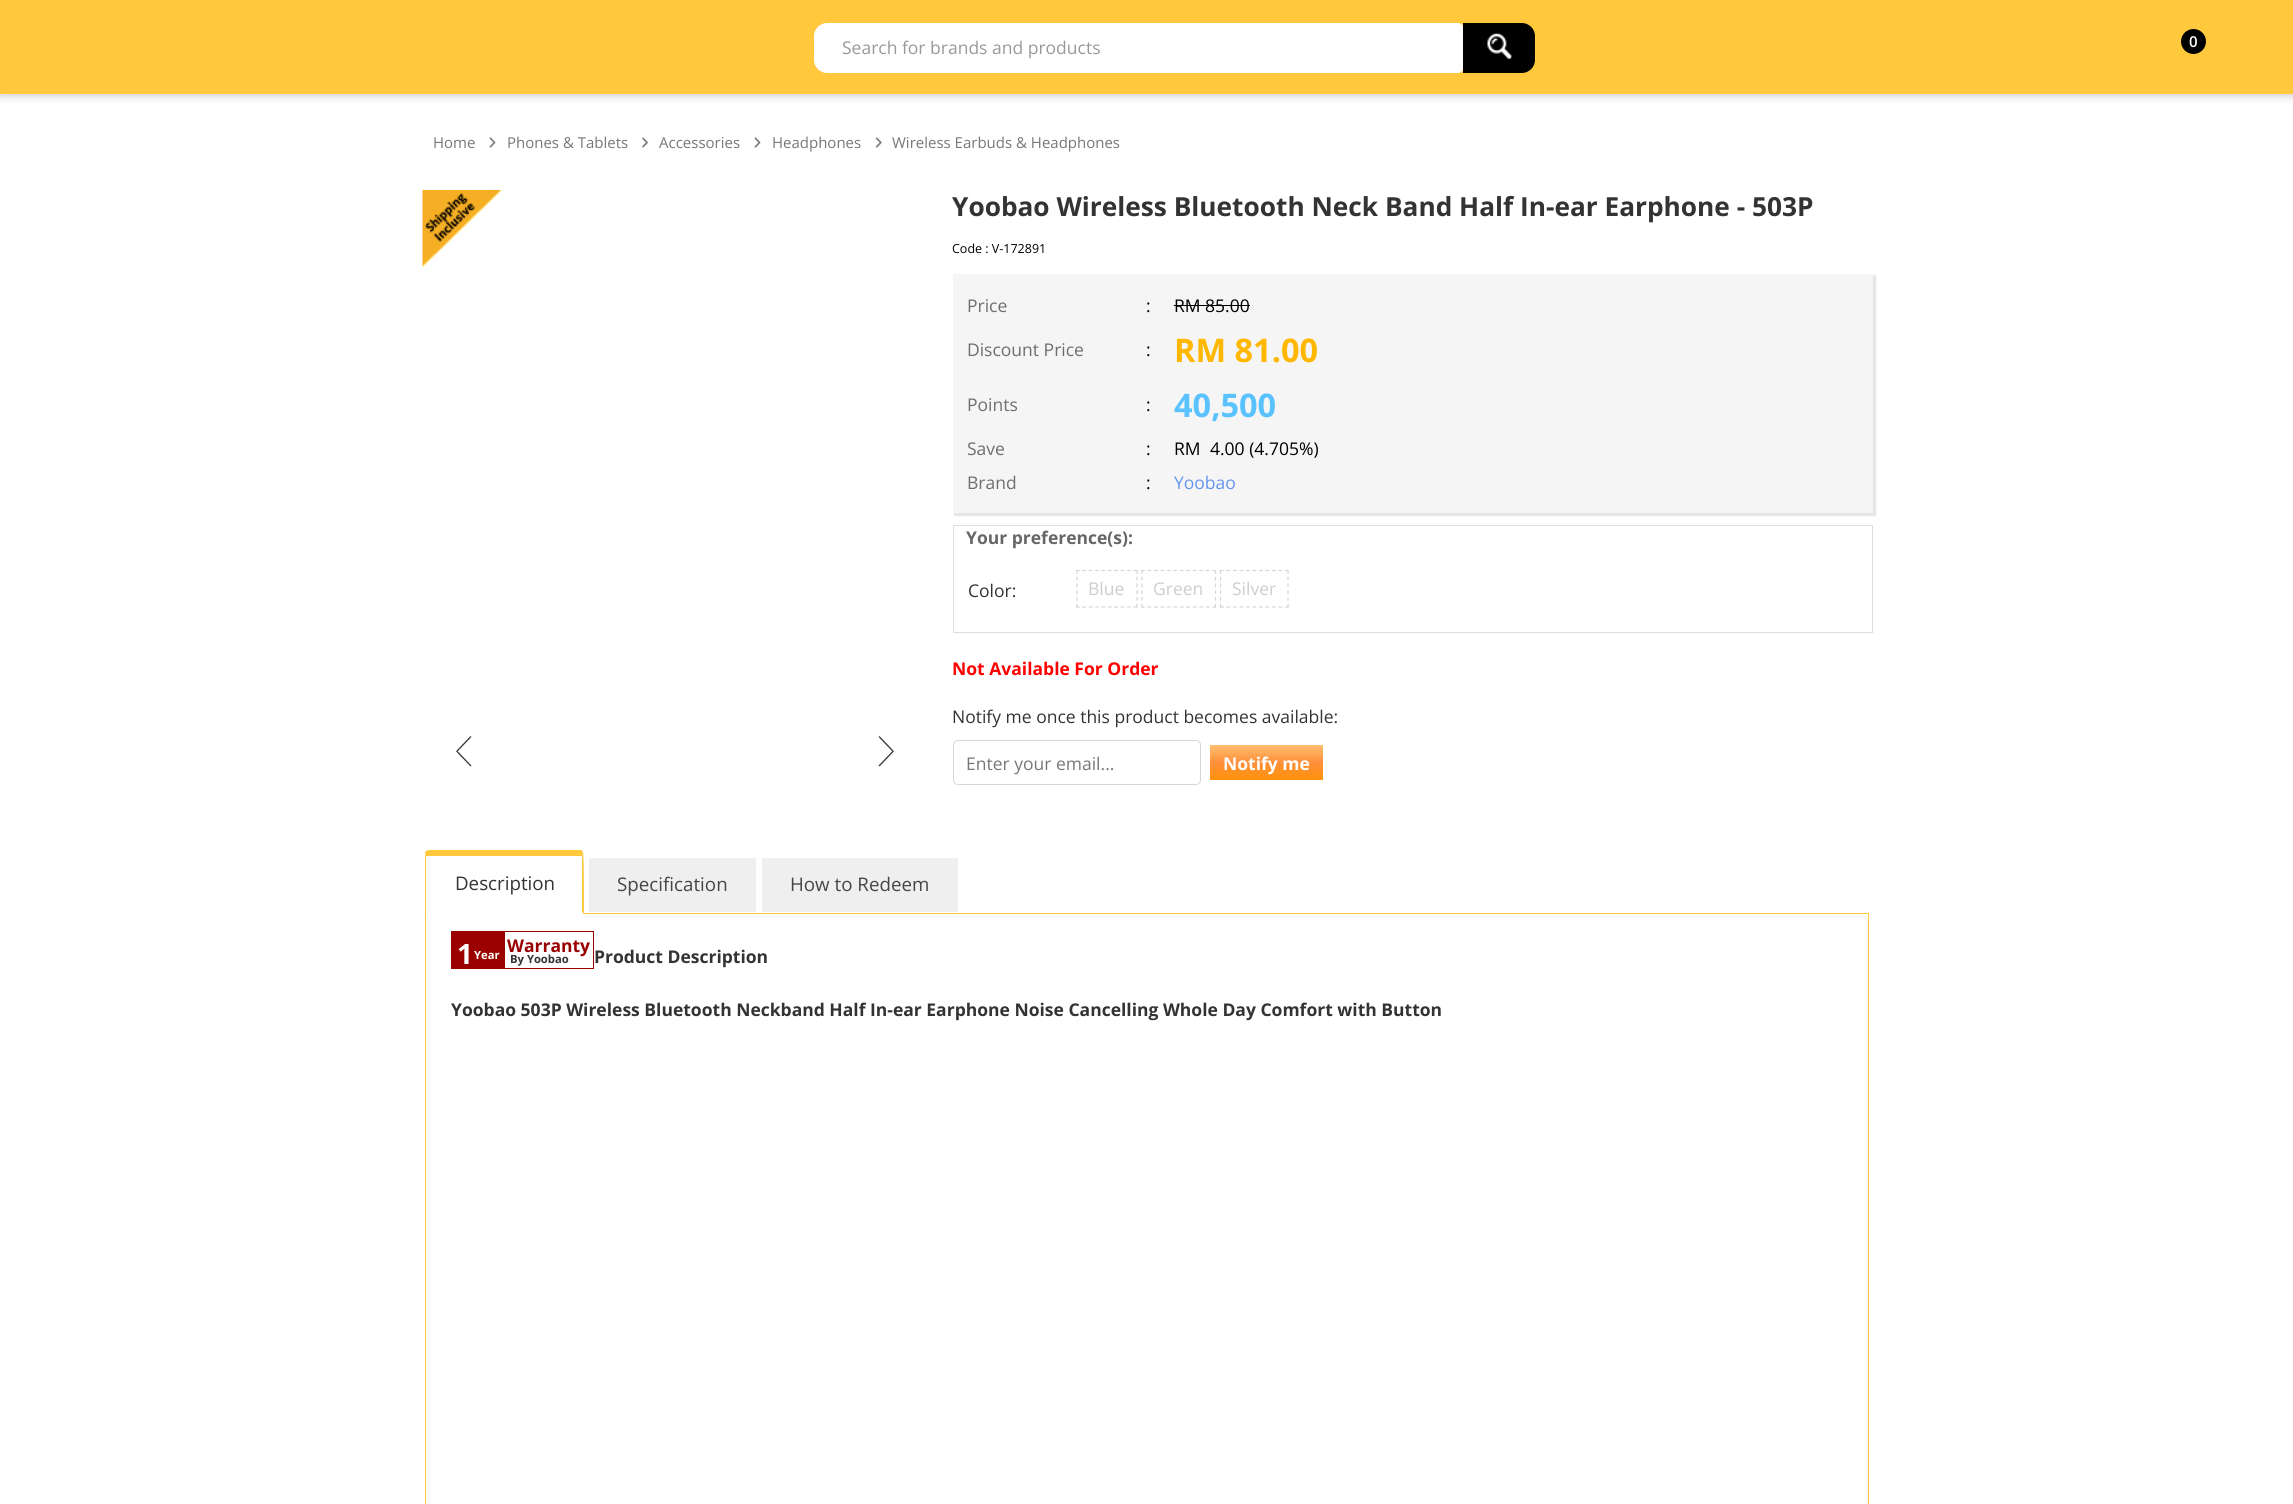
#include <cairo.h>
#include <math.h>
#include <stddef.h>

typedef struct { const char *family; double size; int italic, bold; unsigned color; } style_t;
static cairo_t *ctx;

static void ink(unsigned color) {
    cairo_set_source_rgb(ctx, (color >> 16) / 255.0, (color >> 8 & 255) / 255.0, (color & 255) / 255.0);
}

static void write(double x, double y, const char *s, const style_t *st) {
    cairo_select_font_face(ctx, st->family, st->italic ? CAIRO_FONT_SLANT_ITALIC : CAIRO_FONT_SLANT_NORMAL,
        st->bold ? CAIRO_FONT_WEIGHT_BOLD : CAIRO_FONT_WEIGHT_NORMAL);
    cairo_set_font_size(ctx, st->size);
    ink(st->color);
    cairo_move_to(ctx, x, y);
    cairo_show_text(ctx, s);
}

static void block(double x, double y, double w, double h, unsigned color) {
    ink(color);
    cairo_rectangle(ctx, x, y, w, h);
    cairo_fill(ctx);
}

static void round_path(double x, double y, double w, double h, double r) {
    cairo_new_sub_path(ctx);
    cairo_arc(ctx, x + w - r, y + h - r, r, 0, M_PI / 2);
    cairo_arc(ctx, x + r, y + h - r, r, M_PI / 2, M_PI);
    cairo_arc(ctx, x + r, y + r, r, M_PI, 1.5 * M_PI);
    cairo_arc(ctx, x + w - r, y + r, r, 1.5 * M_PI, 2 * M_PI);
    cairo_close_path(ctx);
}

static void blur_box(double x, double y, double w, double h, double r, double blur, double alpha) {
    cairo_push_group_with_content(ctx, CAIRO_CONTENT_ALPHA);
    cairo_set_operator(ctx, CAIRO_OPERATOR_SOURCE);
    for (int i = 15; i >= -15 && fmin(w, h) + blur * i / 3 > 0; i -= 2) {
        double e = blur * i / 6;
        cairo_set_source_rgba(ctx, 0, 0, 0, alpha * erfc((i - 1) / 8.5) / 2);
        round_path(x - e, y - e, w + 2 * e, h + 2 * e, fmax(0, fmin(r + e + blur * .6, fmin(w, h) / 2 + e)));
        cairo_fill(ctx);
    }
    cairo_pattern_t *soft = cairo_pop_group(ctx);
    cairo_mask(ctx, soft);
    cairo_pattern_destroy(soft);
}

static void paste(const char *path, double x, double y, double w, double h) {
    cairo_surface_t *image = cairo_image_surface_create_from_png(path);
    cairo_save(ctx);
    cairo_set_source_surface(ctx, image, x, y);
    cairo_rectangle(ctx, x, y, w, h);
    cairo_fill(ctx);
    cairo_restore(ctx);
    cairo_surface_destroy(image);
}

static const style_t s1 = {"Open Sans", 17.5, 0, 0, 0x999999};
static const style_t s2 = {"Open Sans SemiBold", 15, 0, 0, 0xffffff};
static const style_t s3 = {"Open Sans", 15, 0, 0, 0x777777};
static const style_t s4 = {"Open Sans", 26.25, 0, 1, 0x333333};
static const style_t s5 = {"Open Sans", 12.5, 0, 0, 0x000000};
static const style_t s6 = {"Open Sans", 17.5, 0, 0, 0x6e6e6e};
static const style_t s7 = {"Open Sans", 17.5, 0, 0, 0x000000};
static const style_t s8 = {"Open Sans", 32.5, 0, 1, 0xffb700};
static const style_t s9 = {"Open Sans", 32.5, 0, 1, 0x59c2ff};
static const style_t s10 = {"Open Sans", 17.5, 0, 0, 0x6495ed};
static const style_t s11 = {"Open Sans", 17.5, 0, 1, 0x666666};
static const style_t s12 = {"Open Sans", 17.5, 0, 0, 0x333333};
static const style_t s13 = {"Open Sans", 17.5, 0, 0, 0xcdcdcd};
static const style_t s14 = {"Open Sans", 17.5, 0, 1, 0xff0000};
static const style_t s15 = {"Open Sans", 17.5, 0, 0, 0x777777};
static const style_t s16 = {"Open Sans", 17.5, 0, 1, 0xffffff};
static const style_t s17 = {"Open Sans", 18.75, 0, 0, 0x333333};
static const style_t s18 = {"Open Sans", 18.75, 0, 0, 0x454545};
static const style_t s19 = {"Open Sans", 28, 0, 1, 0xffffff};
static const style_t s20 = {"Open Sans", 11.25, 0, 1, 0xffffff};
static const style_t s21 = {"Open Sans", 17.5, 0, 1, 0x9a0000};
static const style_t s22 = {"Open Sans", 11.25, 0, 1, 0x333333};
static const style_t s23 = {"Open Sans", 17.5, 0, 1, 0x333333};

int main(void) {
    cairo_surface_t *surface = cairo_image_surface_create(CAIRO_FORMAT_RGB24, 2293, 1504);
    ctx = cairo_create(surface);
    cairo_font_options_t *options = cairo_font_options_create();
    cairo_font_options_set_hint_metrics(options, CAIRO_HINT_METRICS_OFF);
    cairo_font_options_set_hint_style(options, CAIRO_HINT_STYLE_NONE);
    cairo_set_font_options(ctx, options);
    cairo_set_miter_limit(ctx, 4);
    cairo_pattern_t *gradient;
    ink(0xffffff);
    cairo_paint(ctx);
    ink(0x000000);
    blur_box(0, 3, 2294, 93, 0, 4.5, 0.2);
    block(0, 0, 2293, 94, 0xffc83d);
    ink(0xffffff);
    cairo_new_path(ctx);
    cairo_move_to(ctx, 827, 23);
    cairo_line_to(ctx, 1458, 23);
    cairo_curve_to(ctx, 1461, 23, 1463, 25, 1463, 28);
    cairo_line_to(ctx, 1463, 68);
    cairo_curve_to(ctx, 1463, 71, 1461, 73, 1458, 73);
    cairo_line_to(ctx, 827, 73);
    cairo_curve_to(ctx, 820, 73, 814, 67, 814, 60);
    cairo_line_to(ctx, 814, 36);
    cairo_curve_to(ctx, 814, 29, 820, 23, 827, 23);
    cairo_close_path(ctx);
    cairo_fill(ctx);
    write(842, 54, "Search for brands and products", &s1);
    ink(0x000000);
    cairo_new_path(ctx);
    cairo_move_to(ctx, 1463, 23);
    cairo_line_to(ctx, 1522, 23);
    cairo_curve_to(ctx, 1529, 23, 1535, 29, 1535, 36);
    cairo_line_to(ctx, 1535, 60);
    cairo_curve_to(ctx, 1535, 67, 1529, 73, 1522, 73);
    cairo_line_to(ctx, 1463, 73);
    cairo_close_path(ctx);
    cairo_fill(ctx);
    paste("pic1.png", 1487, 33, 25, 26);
    cairo_arc(ctx, 2193.5, 41.5, 12.5, 0, 2 * M_PI);
    cairo_fill(ctx);
    write(2189, 47, "0", &s2);
    write(433, 148, "Home", &s3);
    paste("pic2.png", 489, 137, 7, 11);
    write(507, 148, "Phones & Tablets", &s3);
    paste("pic3.png", 641, 137, 8, 11);
    write(659, 148, "Accessories", &s3);
    paste("pic4.png", 754, 137, 7, 11);
    write(772, 148, "Headphones", &s3);
    paste("pic5.png", 875, 137, 7, 11);
    write(892, 148, "Wireless Earbuds & Headphones", &s3);
    paste("pic6.png", 422, 190, 81, 78);
    paste("pic7.png", 456, 736, 16, 31);
    paste("pic8.png", 878, 736, 16, 31);
    write(952, 216, "Yoobao Wireless Bluetooth Neck Band Half In-ear Earphone - 503P", &s4);
    write(952, 253, "Code : V-172891", &s5);
    ink(0xe5e5e5);
    blur_box(954, 275, 922, 241, 0, 0.5, 1);
    block(953, 274, 920, 239, 0xf5f5f5);
    write(967, 312, "Price", &s6);
    write(1146, 312, ":", &s7);
    write(1174, 312, "RM 85.00", &s7);
    block(1174, 305, 76, 1, 0x000000);
    write(967, 356, "Discount Price", &s6);
    write(1146, 356, ":", &s7);
    write(1174, 362, "RM 81.00", &s8);
    write(967, 411, "Points", &s6);
    write(1146, 411, ":", &s7);
    write(1174, 417, "40,500", &s9);
    write(967, 455, "Save", &s6);
    write(1146, 455, ":", &s7);
    write(1174, 455, "RM", &s7);
    write(1210, 455, "4.00 (4.705%)", &s7);
    write(967, 489, "Brand", &s6);
    write(1146, 489, ":", &s7);
    write(1174, 489, "Yoobao", &s10);
    cairo_rectangle(ctx, 953.5, 525.5, 919, 107);
    ink(0xdddddd);
    cairo_set_line_width(ctx, 1);
    cairo_stroke(ctx);
    write(966, 544, "Your preference(s):", &s11);
    write(968, 597, "Color:", &s12);
    cairo_new_path(ctx);
    cairo_move_to(ctx, 1076, 570.5);
    cairo_line_to(ctx, 1137.5, 570.5);
    ink(0xd6d6d8);
    cairo_set_line_width(ctx, 1.2);
    cairo_set_dash(ctx, (double[]){3.75, 2.64}, 2, 0);
    cairo_stroke(ctx);
    cairo_new_path(ctx);
    cairo_move_to(ctx, 1137, 570);
    cairo_line_to(ctx, 1137, 607.5);
    cairo_set_dash(ctx, (double[]){3.75, 3}, 2, 0);
    cairo_stroke(ctx);
    cairo_new_path(ctx);
    cairo_move_to(ctx, 1076, 607);
    cairo_line_to(ctx, 1137.5, 607);
    cairo_set_dash(ctx, (double[]){3.75, 2.64}, 2, 0);
    cairo_stroke(ctx);
    cairo_new_path(ctx);
    cairo_move_to(ctx, 1077, 570);
    cairo_line_to(ctx, 1077, 607.5);
    cairo_set_dash(ctx, (double[]){3.75, 3}, 2, 0);
    cairo_stroke(ctx);
    write(1088, 595, "Blue", &s13);
    cairo_new_path(ctx);
    cairo_move_to(ctx, 1141, 570.5);
    cairo_line_to(ctx, 1216, 570.5);
    ink(0xd6d6d8);
    cairo_set_dash(ctx, (double[]){3.75, 2.73}, 2, 0);
    cairo_stroke(ctx);
    cairo_new_path(ctx);
    cairo_move_to(ctx, 1215.5, 570);
    cairo_line_to(ctx, 1215.5, 607.5);
    cairo_set_dash(ctx, (double[]){3.75, 3}, 2, 0);
    cairo_stroke(ctx);
    cairo_new_path(ctx);
    cairo_move_to(ctx, 1141, 607);
    cairo_line_to(ctx, 1216, 607);
    cairo_set_dash(ctx, (double[]){3.75, 2.73}, 2, 0);
    cairo_stroke(ctx);
    cairo_new_path(ctx);
    cairo_move_to(ctx, 1142, 570);
    cairo_line_to(ctx, 1142, 607.5);
    cairo_set_dash(ctx, (double[]){3.75, 3}, 2, 0);
    cairo_stroke(ctx);
    write(1153, 595, "Green", &s13);
    cairo_new_path(ctx);
    cairo_move_to(ctx, 1220, 570.5);
    cairo_line_to(ctx, 1289, 570.5);
    ink(0xd6d6d8);
    cairo_set_dash(ctx, (double[]){3.75, 2.75}, 2, 0);
    cairo_stroke(ctx);
    cairo_new_path(ctx);
    cairo_move_to(ctx, 1288, 570);
    cairo_line_to(ctx, 1288, 607.5);
    cairo_set_dash(ctx, (double[]){3.75, 3}, 2, 0);
    cairo_stroke(ctx);
    cairo_new_path(ctx);
    cairo_move_to(ctx, 1220, 607);
    cairo_line_to(ctx, 1289, 607);
    cairo_set_dash(ctx, (double[]){3.75, 2.75}, 2, 0);
    cairo_stroke(ctx);
    cairo_new_path(ctx);
    cairo_move_to(ctx, 1220.5, 570);
    cairo_line_to(ctx, 1220.5, 607.5);
    cairo_set_dash(ctx, (double[]){3.75, 3}, 2, 0);
    cairo_stroke(ctx);
    write(1232, 595, "Silver", &s13);
    write(952, 675, "Not Available For Order", &s14);
    write(952, 723, "Notify me once this product becomes available:", &s12);
    round_path(953.5, 740.5, 247, 44, 4.5);
    ink(0xd7d7d7);
    cairo_set_line_width(ctx, 1);
    cairo_set_dash(ctx, NULL, 0, 0);
    cairo_stroke(ctx);
    write(966, 770, "Enter your email...", &s15);
    gradient = cairo_pattern_create_linear(1266, 745, 1266, 780);
    cairo_pattern_add_color_stop_rgba(gradient, 0, 1, 0.749, 0.439, 1);
    cairo_pattern_add_color_stop_rgba(gradient, 0.5, 1, 0.565, 0.231, 1);
    cairo_pattern_add_color_stop_rgba(gradient, 1, 1, 0.573, 0.039, 1);
    cairo_set_source(ctx, gradient);
    cairo_pattern_destroy(gradient);
    cairo_rectangle(ctx, 1210, 745, 113, 35);
    cairo_fill(ctx);
    write(1223, 770, "Notify me", &s16);
    ink(0xffc83d);
    cairo_new_path(ctx);
    cairo_move_to(ctx, 429, 850);
    cairo_curve_to(ctx, 428, 850, 426, 851, 425, 852);
    cairo_line_to(ctx, 426, 856);
    cairo_line_to(ctx, 582, 856);
    cairo_line_to(ctx, 582, 859);
    cairo_line_to(ctx, 583, 852);
    cairo_curve_to(ctx, 583, 851, 581, 850, 580, 850);
    cairo_close_path(ctx);
    cairo_fill(ctx);
    cairo_rectangle(ctx, 425.5, 913.5, 1443, 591);
    cairo_stroke(ctx);
    cairo_new_path(ctx);
    cairo_move_to(ctx, 583, 852);
    cairo_curve_to(ctx, 584, 854, 584, 907, 584, 914);
    cairo_line_to(ctx, 582, 912);
    cairo_line_to(ctx, 582, 859);
    cairo_close_path(ctx);
    cairo_fill(ctx);
    ink(0xffffff);
    cairo_new_path(ctx);
    cairo_move_to(ctx, 584, 914);
    cairo_line_to(ctx, 582, 912);
    cairo_line_to(ctx, 427, 912);
    cairo_line_to(ctx, 425, 914);
    cairo_close_path(ctx);
    cairo_fill(ctx);
    ink(0xffc83d);
    cairo_new_path(ctx);
    cairo_move_to(ctx, 425, 914);
    cairo_line_to(ctx, 427, 912);
    cairo_line_to(ctx, 426, 912);
    cairo_line_to(ctx, 426, 856);
    cairo_line_to(ctx, 425, 852);
    cairo_line_to(ctx, 425, 854);
    cairo_close_path(ctx);
    cairo_fill(ctx);
    write(455, 890, "Description", &s17);
    ink(0xefefef);
    cairo_new_path(ctx);
    cairo_move_to(ctx, 591, 858);
    cairo_line_to(ctx, 756, 858);
    cairo_line_to(ctx, 756, 912);
    cairo_line_to(ctx, 589, 912);
    cairo_line_to(ctx, 589, 858);
    cairo_close_path(ctx);
    cairo_fill(ctx);
    write(617, 891, "Specification", &s18);
    ink(0xefefef);
    cairo_new_path(ctx);
    cairo_move_to(ctx, 765, 858);
    cairo_line_to(ctx, 958, 858);
    cairo_line_to(ctx, 958, 912);
    cairo_line_to(ctx, 762, 912);
    cairo_line_to(ctx, 762, 858);
    cairo_close_path(ctx);
    cairo_fill(ctx);
    write(790, 891, "How to Redeem", &s18);
    block(451, 931, 53, 38, 0x9a0000);
    write(457, 964, "1", &s19);
    write(474, 959, "Year", &s20);
    cairo_rectangle(ctx, 504.5, 931.5, 89, 37);
    ink(0x9a0000);
    cairo_stroke(ctx);
    write(507, 952, "Warranty", &s21);
    write(510, 963, "By Yoobao", &s22);
    write(594, 963, "Product Description", &s23);
    write(451, 1016, "Yoobao 503P Wireless Bluetooth Neckband Half In-ear Earphone Noise Cancelling Whole Day Comfort with Button", &s23);
    cairo_surface_write_to_png(surface, "screenshot.png");
    cairo_font_options_destroy(options);
    cairo_destroy(ctx);
    cairo_surface_destroy(surface);
    return 0;
}
